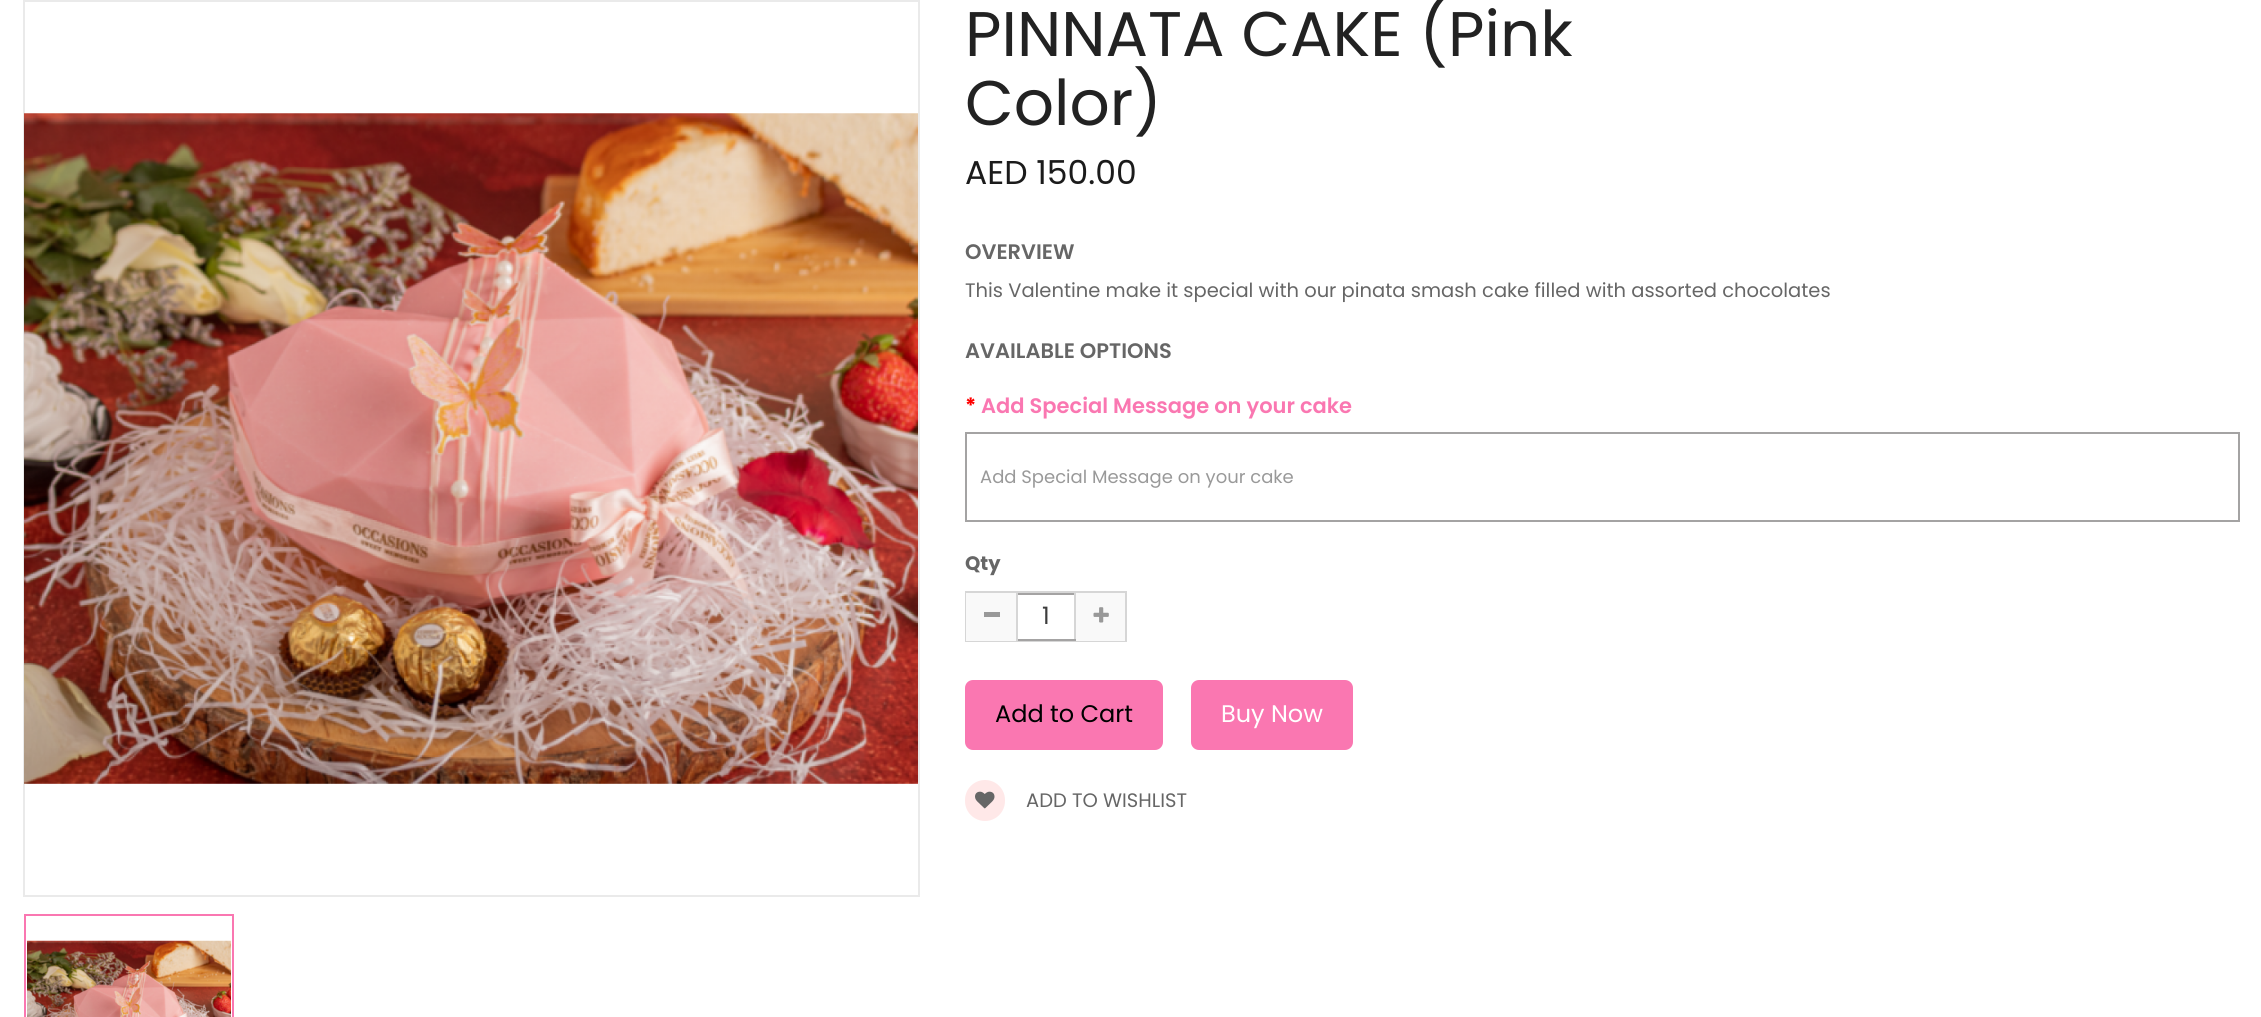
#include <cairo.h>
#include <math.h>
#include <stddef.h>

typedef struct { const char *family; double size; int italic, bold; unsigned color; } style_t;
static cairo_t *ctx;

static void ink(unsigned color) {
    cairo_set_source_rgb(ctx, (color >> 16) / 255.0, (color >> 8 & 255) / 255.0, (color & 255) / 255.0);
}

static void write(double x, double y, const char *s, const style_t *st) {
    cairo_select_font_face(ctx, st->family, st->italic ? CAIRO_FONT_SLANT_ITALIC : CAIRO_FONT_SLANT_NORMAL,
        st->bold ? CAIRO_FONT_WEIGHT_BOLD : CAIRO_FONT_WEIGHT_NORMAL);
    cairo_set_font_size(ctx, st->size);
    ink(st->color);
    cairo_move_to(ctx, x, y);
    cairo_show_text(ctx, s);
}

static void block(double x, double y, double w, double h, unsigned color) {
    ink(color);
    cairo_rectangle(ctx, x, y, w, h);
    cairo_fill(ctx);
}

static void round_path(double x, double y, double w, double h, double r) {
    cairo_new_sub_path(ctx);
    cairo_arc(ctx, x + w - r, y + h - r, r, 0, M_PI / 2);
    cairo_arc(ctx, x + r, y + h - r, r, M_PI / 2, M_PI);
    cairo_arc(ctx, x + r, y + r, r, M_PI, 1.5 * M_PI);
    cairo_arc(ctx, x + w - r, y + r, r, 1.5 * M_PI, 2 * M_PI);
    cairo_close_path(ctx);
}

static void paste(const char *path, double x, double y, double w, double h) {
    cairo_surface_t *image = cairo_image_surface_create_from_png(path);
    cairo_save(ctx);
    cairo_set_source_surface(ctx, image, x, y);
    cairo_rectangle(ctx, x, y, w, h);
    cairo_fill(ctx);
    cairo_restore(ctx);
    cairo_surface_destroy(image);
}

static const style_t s1 = {"Poppins", 63, 0, 0, 0x222222};
static const style_t s2 = {"Poppins", 33, 0, 0, 0x1b1b1b};
static const style_t s3 = {"Poppins SemiBold", 21, 0, 0, 0x666666};
static const style_t s4 = {"Poppins", 19.5, 0, 0, 0x666666};
static const style_t s5 = {"Poppins", 21, 0, 1, 0xff0000};
static const style_t s6 = {"Poppins SemiBold", 21, 0, 0, 0xfa77b1};
static const style_t s7 = {"Poppins", 18, 0, 0, 0x999999};
static const style_t s8 = {"Poppins", 19.5, 0, 1, 0x666666};
static const style_t s9 = {"Poppins", 24, 0, 0, 0x3d3d3d};
static const style_t s10 = {"Poppins", 24, 0, 0, 0x000000};
static const style_t s11 = {"Poppins", 24, 0, 0, 0xffffff};

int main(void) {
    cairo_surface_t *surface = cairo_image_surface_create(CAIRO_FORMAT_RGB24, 2261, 1017);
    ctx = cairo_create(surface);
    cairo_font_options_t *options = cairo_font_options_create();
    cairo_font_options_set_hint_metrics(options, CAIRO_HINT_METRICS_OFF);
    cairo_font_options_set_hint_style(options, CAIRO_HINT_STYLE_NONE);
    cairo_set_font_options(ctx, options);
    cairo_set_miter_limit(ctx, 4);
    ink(0xffffff);
    cairo_paint(ctx);
    cairo_rectangle(ctx, 24, 1, 895, 895);
    ink(0xeaeaea);
    cairo_stroke(ctx);
    paste("pic1.png", 24, 113, 894, 671);
    cairo_rectangle(ctx, 25, 915, 208, 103);
    ink(0xfa77b1);
    cairo_stroke(ctx);
    paste("pic2.png", 27, 940, 204, 77);
    write(965, 56, "PINNATA CAKE (Pink", &s1);
    write(965, 125, "Color)", &s1);
    write(965, 184, "AED 150.00", &s2);
    write(965, 259, "OVERVIEW", &s3);
    write(965, 297, "This Valentine make it special with our pinata smash cake filled with assorted chocolates", &s4);
    write(965, 358, "AVAILABLE OPTIONS", &s3);
    write(965, 413, "*", &s5);
    write(981, 413, "Add Special Message on your cake", &s6);
    cairo_rectangle(ctx, 966, 433, 1273, 88);
    ink(0xa4a3a3);
    cairo_stroke(ctx);
    write(980, 483, "Add Special Message on your cake", &s7);
    write(965, 570, "Qty", &s8);
    cairo_rectangle(ctx, 966, 592, 160, 49);
    ink(0xd6d6d6);
    cairo_stroke(ctx);
    block(966, 593, 50, 48, 0xf9f9f9);
    block(984, 612, 16, 5, 0x999999);
    block(1016, 593, 60, 2, 0xa4a3a3);
    block(1074, 593, 2, 48, 0xd6d6d6);
    block(1016, 639, 60, 2, 0xa4a3a3);
    block(1016, 593, 2, 48, 0xd6d6d6);
    write(1042, 624, "1", &s9);
    block(1076, 593, 49, 48, 0xf9f9f9);
    paste("pic3.png", 1093, 607, 16, 16);
    ink(0xfa77b1);
    round_path(965, 680, 198, 70, 8);
    cairo_fill(ctx);
    write(995, 722, "Add to Cart", &s10);
    ink(0xfa77b1);
    round_path(1191, 680, 162, 70, 8);
    cairo_fill(ctx);
    write(1221, 722, "Buy Now", &s11);
    ink(0xffe8e8);
    round_path(966, 781, 38, 39, 19);
    cairo_fill_preserve(ctx);
    cairo_stroke(ctx);
    paste("pic4.png", 975, 791, 20, 18);
    write(1026, 807, "ADD TO WISHLIST", &s4);
    cairo_surface_write_to_png(surface, "screenshot.png");
    cairo_font_options_destroy(options);
    cairo_destroy(ctx);
    cairo_surface_destroy(surface);
    return 0;
}
